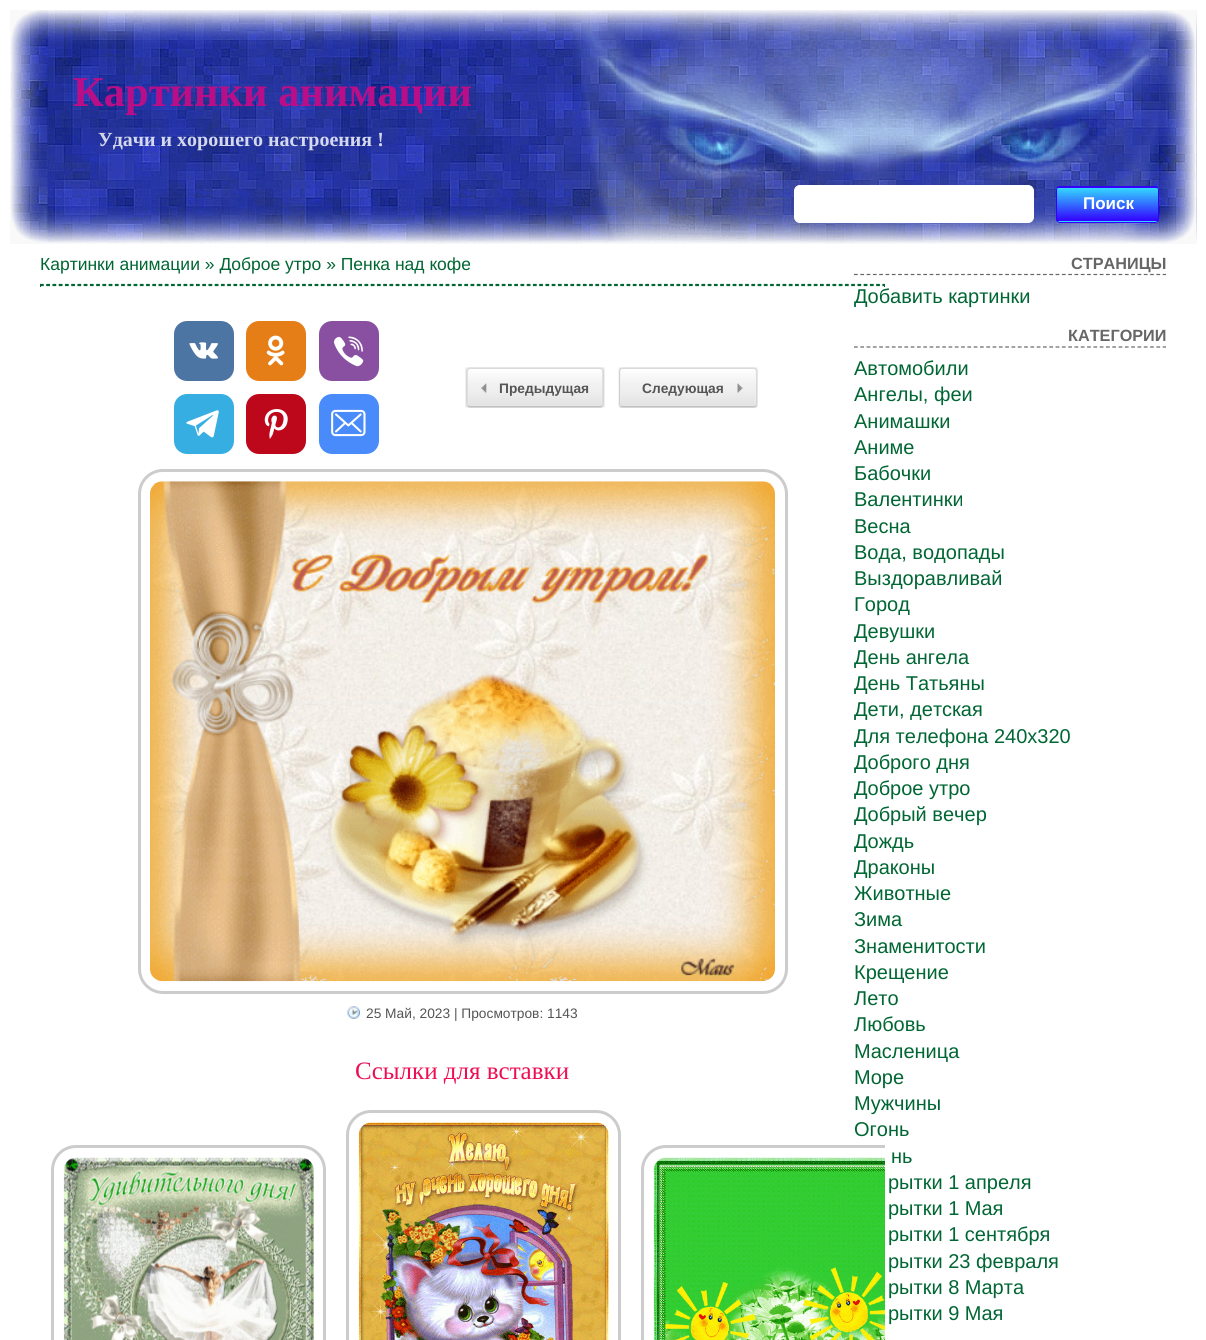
#include <cairo.h>
#include <math.h>
#include <stddef.h>

typedef struct { const char *family; double size; int italic, bold; unsigned color; } style_t;
static cairo_t *ctx;

static void ink(unsigned color) {
    cairo_set_source_rgb(ctx, (color >> 16) / 255.0, (color >> 8 & 255) / 255.0, (color & 255) / 255.0);
}

static void write(double x, double y, const char *s, const style_t *st) {
    cairo_select_font_face(ctx, st->family, st->italic ? CAIRO_FONT_SLANT_ITALIC : CAIRO_FONT_SLANT_NORMAL,
        st->bold ? CAIRO_FONT_WEIGHT_BOLD : CAIRO_FONT_WEIGHT_NORMAL);
    cairo_set_font_size(ctx, st->size);
    ink(st->color);
    cairo_move_to(ctx, x, y);
    cairo_show_text(ctx, s);
}

static void block(double x, double y, double w, double h, unsigned color) {
    ink(color);
    cairo_rectangle(ctx, x, y, w, h);
    cairo_fill(ctx);
}

static void round_path(double x, double y, double w, double h, double r) {
    cairo_new_sub_path(ctx);
    cairo_arc(ctx, x + w - r, y + h - r, r, 0, M_PI / 2);
    cairo_arc(ctx, x + r, y + h - r, r, M_PI / 2, M_PI);
    cairo_arc(ctx, x + r, y + r, r, M_PI, 1.5 * M_PI);
    cairo_arc(ctx, x + w - r, y + r, r, 1.5 * M_PI, 2 * M_PI);
    cairo_close_path(ctx);
}

static void paste(const char *path, double x, double y, double w, double h) {
    cairo_surface_t *image = cairo_image_surface_create_from_png(path);
    cairo_save(ctx);
    cairo_set_source_surface(ctx, image, x, y);
    cairo_rectangle(ctx, x, y, w, h);
    cairo_fill(ctx);
    cairo_restore(ctx);
    cairo_surface_destroy(image);
}

static const style_t s1 = {"Liberation Serif", 42.5, 0, 1, 0xba0e88};
static const style_t s2 = {"Liberation Serif", 20, 0, 1, 0xd4d8ec};
static const style_t s3 = {"Liberation Sans", 17, 0, 1, 0xffffff};
static const style_t s4 = {"Liberation Sans", 17.5, 0, 0, 0x006633};
static const style_t s5 = {"Liberation Sans", 13.75, 0, 1, 0x555555};
static const style_t s6 = {"Liberation Sans", 13.75, 0, 0, 0x555555};
static const style_t s7 = {"Liberation Serif", 25, 0, 0, 0xef0e53};
static const style_t s8 = {"Liberation Sans", 20, 0, 0, 0x006633};
static const style_t s9 = {"Liberation Sans", 16.25, 0, 1, 0x666666};

int main(void) {
    cairo_surface_t *surface = cairo_image_surface_create(CAIRO_FORMAT_RGB24, 1206, 1340);
    ctx = cairo_create(surface);
    cairo_font_options_t *options = cairo_font_options_create();
    cairo_font_options_set_hint_metrics(options, CAIRO_HINT_METRICS_OFF);
    cairo_font_options_set_hint_style(options, CAIRO_HINT_STYLE_NONE);
    cairo_set_font_options(ctx, options);
    cairo_set_miter_limit(ctx, 4);
    cairo_pattern_t *gradient;
    ink(0xffffff);
    cairo_paint(ctx);
    paste("pic1.png", 10, 10, 1187, 234);
    paste("pic2.png", 10, 10, 38, 233);
    paste("pic3.png", 371, 10, 826, 234);
    write(73, 106, "Картинки анимации", &s1);
    write(98, 146, "Удачи и хорошего настроения !", &s2);
    ink(0xffffff);
    round_path(794.5, 185.5, 239, 37, 5.5);
    cairo_fill_preserve(ctx);
    cairo_set_line_width(ctx, 1);
    cairo_stroke(ctx);
    cairo_save(ctx);
    round_path(1056, 186, 103, 37, 4);
    cairo_clip(ctx);
    gradient = cairo_pattern_create_linear(1108, 154, 1108, 188);
    cairo_pattern_add_color_stop_rgba(gradient, 0, 0.2, 0.843, 1, 1);
    cairo_pattern_add_color_stop_rgba(gradient, 1, 0.2, 0, 1, 1);
    cairo_set_source(ctx, gradient);
    cairo_pattern_destroy(gradient);
    cairo_rectangle(ctx, 1056, 186, 103, 2);
    cairo_fill(ctx);
    gradient = cairo_pattern_create_linear(1108, 188, 1108, 221);
    cairo_pattern_add_color_stop_rgba(gradient, 0, 0.2, 0.843, 1, 1);
    cairo_pattern_add_color_stop_rgba(gradient, 1, 0.2, 0, 1, 1);
    cairo_set_source(ctx, gradient);
    cairo_pattern_destroy(gradient);
    cairo_rectangle(ctx, 1056, 188, 103, 33);
    cairo_fill(ctx);
    gradient = cairo_pattern_create_linear(1108, 221, 1108, 255);
    cairo_pattern_add_color_stop_rgba(gradient, 0, 0.2, 0.843, 1, 1);
    cairo_pattern_add_color_stop_rgba(gradient, 1, 0.2, 0, 1, 1);
    cairo_set_source(ctx, gradient);
    cairo_pattern_destroy(gradient);
    cairo_rectangle(ctx, 1056, 221, 103, 2);
    cairo_fill(ctx);
    cairo_restore(ctx);
    ink(0x33d7ff);
    cairo_new_path(ctx);
    cairo_move_to(ctx, 1060, 189);
    cairo_line_to(ctx, 1155, 189);
    cairo_curve_to(ctx, 1156, 189, 1158, 190, 1158, 191);
    cairo_line_to(ctx, 1158, 190);
    cairo_curve_to(ctx, 1158, 189, 1157, 188, 1156, 188);
    cairo_line_to(ctx, 1060, 188);
    cairo_curve_to(ctx, 1059, 188, 1058, 189, 1058, 190);
    cairo_line_to(ctx, 1058, 191);
    cairo_curve_to(ctx, 1058, 190, 1059, 189, 1060, 189);
    cairo_close_path(ctx);
    cairo_fill(ctx);
    round_path(1056.5, 186.5, 102, 36, 3.5);
    ink(0x3300ff);
    cairo_stroke(ctx);
    write(1083, 209, "Поиск", &s3);
    write(40, 270, "Картинки анимации » Доброе утро » Пенка над кофе", &s4);
    cairo_new_path(ctx);
    cairo_move_to(ctx, 40, 284.5);
    cairo_line_to(ctx, 885, 284.5);
    cairo_set_line_width(ctx, 1.2);
    cairo_set_dash(ctx, (double[]){3.75, 2.49}, 2, 0);
    cairo_stroke(ctx);
    block(884, 284, 1, 3, 0x006633);
    cairo_new_path(ctx);
    cairo_move_to(ctx, 40, 285.5);
    cairo_line_to(ctx, 885, 285.5);
    cairo_stroke(ctx);
    block(40, 284, 1, 3, 0x006633);
    ink(0x4d75a3);
    round_path(174, 321, 60, 60, 13);
    cairo_fill(ctx);
    paste("pic4.png", 189, 342, 29, 17);
    ink(0xe67e17);
    round_path(246, 321, 60, 60, 13);
    cairo_fill(ctx);
    paste("pic5.png", 266, 335, 19, 31);
    ink(0x8950a1);
    round_path(319, 321, 60, 60, 13);
    cairo_fill(ctx);
    paste("pic6.png", 334, 336, 30, 31);
    ink(0x37aee2);
    round_path(174, 394, 60, 60, 13);
    cairo_fill(ctx);
    paste("pic7.png", 186, 410, 33, 28);
    ink(0xbd081c);
    round_path(246, 394, 60, 60, 13);
    cairo_fill(ctx);
    paste("pic8.png", 264, 409, 24, 30);
    ink(0x498bfa);
    round_path(319, 394, 60, 60, 13);
    cairo_fill(ctx);
    paste("pic9.png", 331, 409, 35, 28);
    paste("pic10.png", 465, 367, 140, 41);
    write(499, 393, "Предыдущая", &s5);
    paste("pic11.png", 618, 367, 140, 41);
    write(642, 393, "Следующая", &s5);
    round_path(139.5, 470.5, 647, 522, 23.5);
    ink(0xcccccc);
    cairo_set_line_width(ctx, 3);
    cairo_set_dash(ctx, NULL, 0, 0);
    cairo_stroke(ctx);
    paste("pic12.png", 150, 481, 625, 501);
    paste("pic13.png", 347, 1006, 13, 13);
    write(366, 1018, "25 Май, 2023 | Просмотров: 1143", &s6);
    write(355, 1079, "Ссылки для вставки", &s7);
    round_path(52.5, 1146.5, 272, 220, 23.5);
    ink(0xcccccc);
    cairo_stroke(ctx);
    paste("pic14.png", 63, 1157, 251, 183);
    round_path(347.5, 1111.5, 272, 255, 23.5);
    cairo_stroke(ctx);
    paste("pic15.png", 358, 1122, 251, 218);
    write(888, 1189, "рытки 1 апреля", &s8);
    write(888, 1215, "рытки 1 Мая", &s8);
    write(888, 1241, "рытки 1 сентября", &s8);
    write(888, 1268, "рытки 23 февраля", &s8);
    write(888, 1294, "рытки 8 Марта", &s8);
    write(888, 1320, "рытки 9 Мая", &s8);
    cairo_save(ctx);
    cairo_rectangle(ctx, 40, 244, 845, 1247);
    cairo_clip(ctx);
    round_path(642.5, 1146.5, 272, 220, 23.5);
    ink(0xcccccc);
    cairo_stroke(ctx);
    cairo_restore(ctx);
    paste("pic16.png", 653, 1157, 232, 183);
    cairo_new_path(ctx);
    cairo_move_to(ctx, 854, 274.5);
    cairo_line_to(ctx, 1166, 274.5);
    ink(0x666666);
    cairo_set_line_width(ctx, 1.2);
    cairo_set_dash(ctx, (double[]){3.75, 2.55}, 2, 0);
    cairo_stroke(ctx);
    write(1071, 269, "СТРАНИЦЫ", &s9);
    write(854, 303, "Добавить картинки", &s8);
    cairo_new_path(ctx);
    cairo_move_to(ctx, 854, 347);
    cairo_line_to(ctx, 1166, 347);
    ink(0x666666);
    cairo_stroke(ctx);
    write(1068, 341, "КАТЕГОРИИ", &s9);
    write(854, 375, "Автомобили", &s8);
    write(854, 401, "Ангелы, феи", &s8);
    write(854, 428, "Анимашки", &s8);
    write(854, 454, "Аниме", &s8);
    write(854, 480, "Бабочки", &s8);
    write(854, 506, "Валентинки", &s8);
    write(854, 533, "Весна", &s8);
    write(854, 559, "Вода, водопады", &s8);
    write(854, 585, "Выздоравливай", &s8);
    write(854, 611, "Город", &s8);
    write(854, 638, "Девушки", &s8);
    write(854, 664, "День ангела", &s8);
    write(854, 690, "День Татьяны", &s8);
    write(854, 716, "Дети, детская", &s8);
    write(854, 743, "Для телефона 240х320", &s8);
    write(854, 769, "Доброго дня", &s8);
    write(854, 795, "Доброе утро", &s8);
    write(854, 821, "Добрый вечер", &s8);
    write(854, 848, "Дождь", &s8);
    write(854, 874, "Драконы", &s8);
    write(854, 900, "Животные", &s8);
    write(854, 926, "Зима", &s8);
    write(854, 953, "Знаменитости", &s8);
    write(854, 979, "Крещение", &s8);
    write(854, 1005, "Лето", &s8);
    write(854, 1031, "Любовь", &s8);
    write(854, 1058, "Масленица", &s8);
    write(854, 1084, "Море", &s8);
    write(854, 1110, "Мужчины", &s8);
    write(854, 1136, "Огонь", &s8);
    write(891, 1163, "нь", &s8);
    cairo_surface_write_to_png(surface, "screenshot.png");
    cairo_font_options_destroy(options);
    cairo_destroy(ctx);
    cairo_surface_destroy(surface);
    return 0;
}
